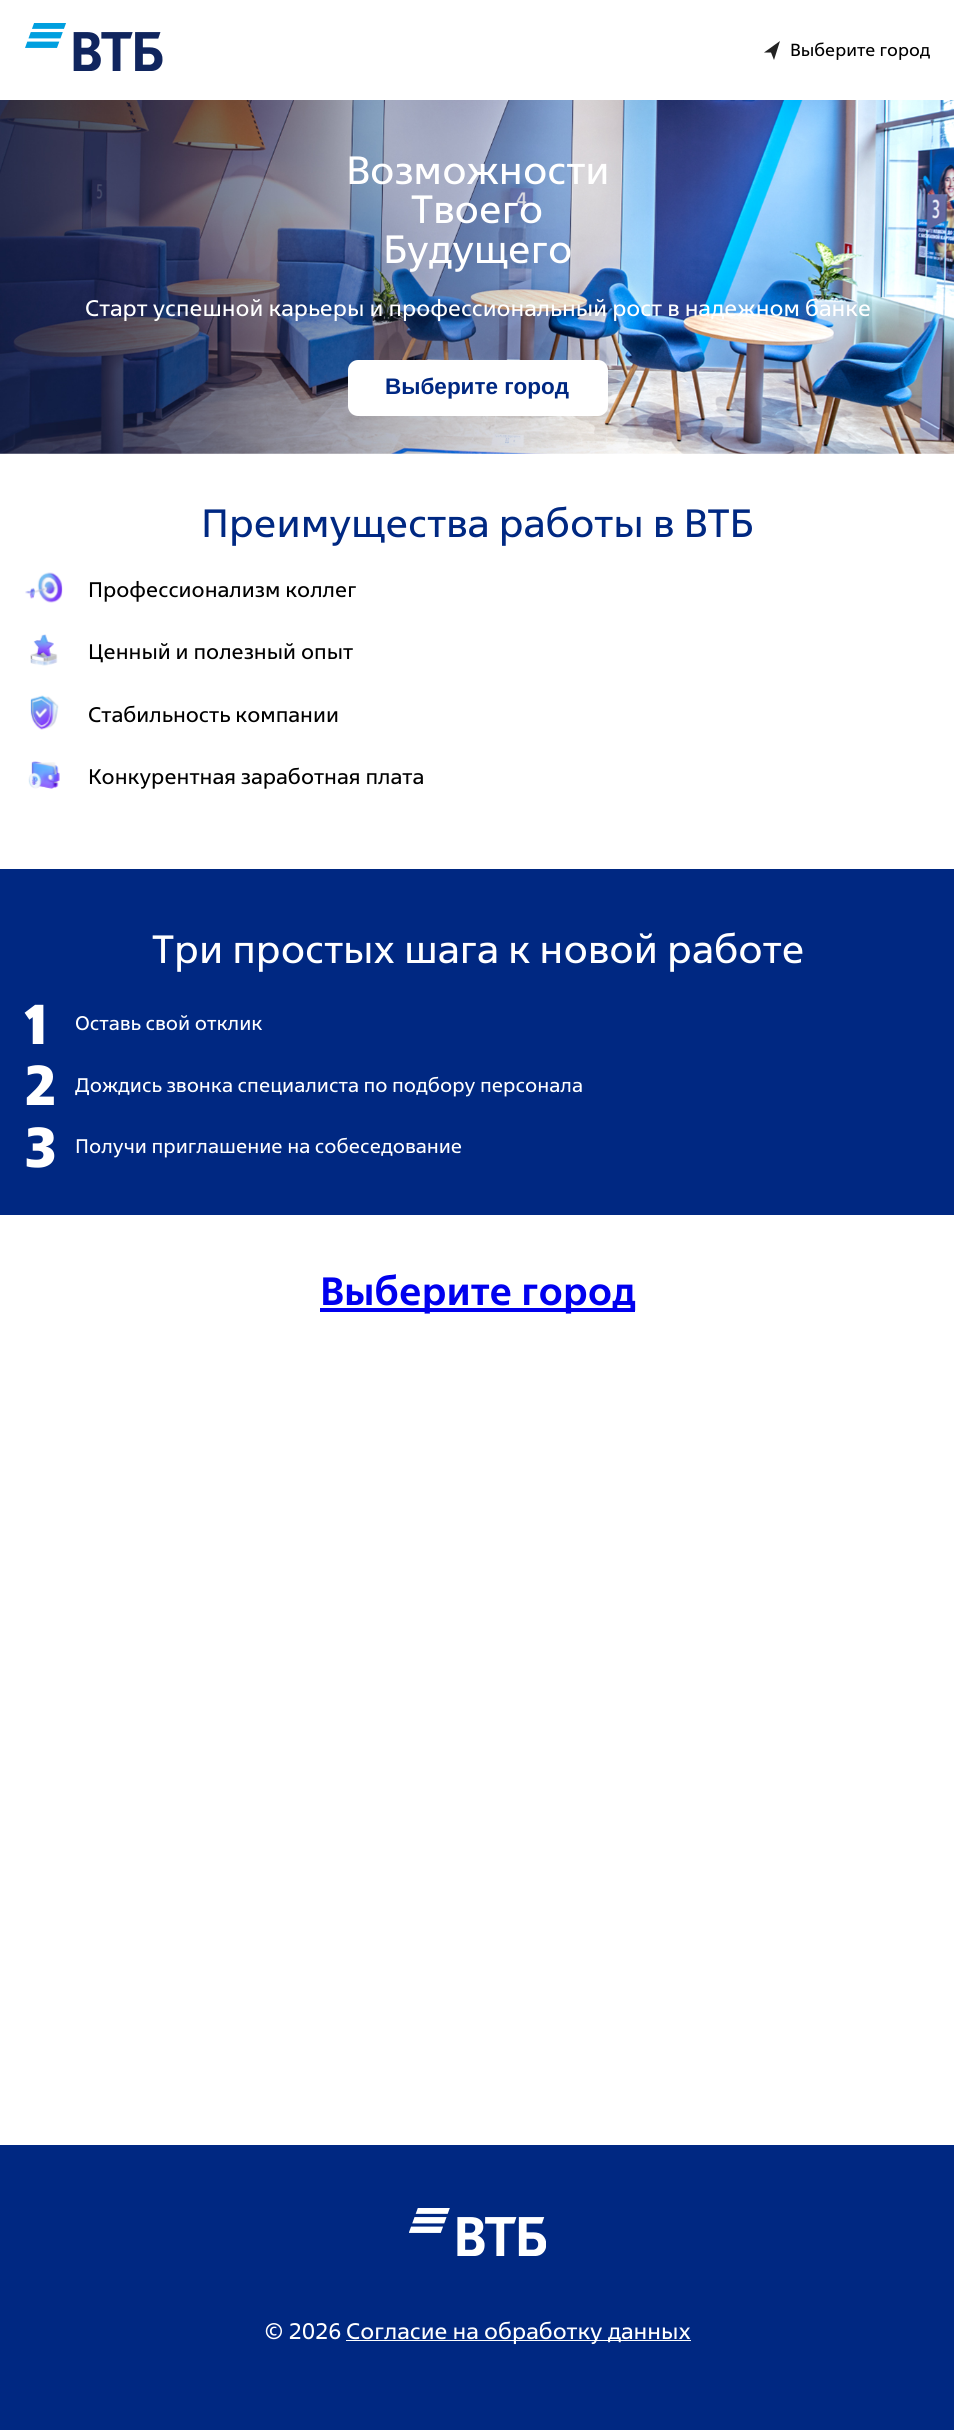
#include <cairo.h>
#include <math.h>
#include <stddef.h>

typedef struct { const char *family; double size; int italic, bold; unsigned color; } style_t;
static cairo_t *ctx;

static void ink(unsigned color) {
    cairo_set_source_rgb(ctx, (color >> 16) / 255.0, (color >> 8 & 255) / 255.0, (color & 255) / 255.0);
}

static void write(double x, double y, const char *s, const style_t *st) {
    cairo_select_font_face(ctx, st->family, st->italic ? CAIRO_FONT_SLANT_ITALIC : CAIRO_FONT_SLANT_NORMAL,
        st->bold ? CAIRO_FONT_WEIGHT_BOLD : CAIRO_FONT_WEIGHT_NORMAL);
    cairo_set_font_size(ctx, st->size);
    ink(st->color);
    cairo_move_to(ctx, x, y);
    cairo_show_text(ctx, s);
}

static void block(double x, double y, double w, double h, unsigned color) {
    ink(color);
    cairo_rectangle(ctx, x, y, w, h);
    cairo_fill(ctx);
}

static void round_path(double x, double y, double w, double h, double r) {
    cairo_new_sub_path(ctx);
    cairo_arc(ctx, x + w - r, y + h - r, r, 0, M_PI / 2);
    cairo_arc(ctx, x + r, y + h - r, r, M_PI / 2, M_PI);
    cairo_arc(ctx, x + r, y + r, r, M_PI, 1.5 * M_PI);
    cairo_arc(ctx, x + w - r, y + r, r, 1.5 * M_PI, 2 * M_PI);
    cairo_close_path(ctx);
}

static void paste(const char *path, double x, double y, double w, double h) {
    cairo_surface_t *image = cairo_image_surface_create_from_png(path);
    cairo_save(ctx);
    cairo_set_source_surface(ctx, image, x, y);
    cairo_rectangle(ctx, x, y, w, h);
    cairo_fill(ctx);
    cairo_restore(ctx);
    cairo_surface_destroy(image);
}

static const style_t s1 = {"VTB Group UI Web", 17.5, 0, 0, 0x000000};
static const style_t s2 = {"VTB Group UI Web", 39.4, 0, 0, 0xffffff};
static const style_t s3 = {"VTB Group UI Web", 22.5, 0, 0, 0xffffff};
static const style_t s4 = {"Liberation Sans", 22.5, 0, 1, 0x002882};
static const style_t s5 = {"VTB Group UI Web", 39.4, 0, 0, 0x002882};
static const style_t s6 = {"VTB Group UI Web", 21.1, 0, 0, 0x000000};
static const style_t s7 = {"VTB Group UI Web", 56, 0, 1, 0xffffff};
static const style_t s8 = {"VTB Group UI Web", 19.7, 0, 0, 0xffffff};
static const style_t s9 = {"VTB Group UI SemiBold", 39.4, 0, 0, 0x0000ee};

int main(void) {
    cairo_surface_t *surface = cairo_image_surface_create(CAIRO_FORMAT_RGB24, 954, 2430);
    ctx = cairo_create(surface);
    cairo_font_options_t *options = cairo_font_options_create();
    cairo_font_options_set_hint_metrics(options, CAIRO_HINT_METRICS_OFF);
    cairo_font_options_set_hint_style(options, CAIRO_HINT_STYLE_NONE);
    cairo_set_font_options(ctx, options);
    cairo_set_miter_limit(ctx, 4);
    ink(0xffffff);
    cairo_paint(ctx);
    paste("pic1.png", 25, 23, 138, 48);
    ink(0x222222);
    cairo_set_fill_rule(ctx, CAIRO_FILL_RULE_EVEN_ODD);
    cairo_new_path(ctx);
    cairo_move_to(ctx, 771, 52.5);
    cairo_line_to(ctx, 764, 52.5);
    cairo_line_to(ctx, 780, 41);
    cairo_line_to(ctx, 774, 60);
    cairo_close_path(ctx);
    cairo_fill(ctx);
    write(790, 56, "Выберите город", &s1);
    paste("pic2.png", 0, 100, 954, 354);
    write(346, 184, "Возможности", &s2);
    write(411, 223, "Твоего", &s2);
    write(383, 263, "Будущего", &s2);
    write(85, 316, "Старт успешной карьеры и профессиональный рост в надежном банке", &s3);
    round_path(348, 360, 260, 56, 10);
    cairo_fill(ctx);
    write(385, 394, "Выберите город", &s4);
    write(201, 537, "Преимущества работы в ВТБ", &s5);
    paste("pic3.png", 25, 572, 38, 31);
    write(88, 597, "Профессионализм коллег", &s6);
    paste("pic4.png", 30, 634, 28, 32);
    write(88, 659, "Ценный и полезный опыт", &s6);
    paste("pic5.png", 30, 695, 29, 35);
    write(88, 722, "Стабильность компании", &s6);
    paste("pic6.png", 28, 761, 32, 28);
    write(88, 784, "Конкурентная заработная плата", &s6);
    block(0, 869, 954, 346, 0x002882);
    write(152, 963, "Три простых шага к новой работе", &s2);
    write(25, 1044, "1", &s7);
    write(75, 1030, "Оставь свой отклик", &s8);
    write(25, 1105, "2", &s7);
    write(75, 1092, "Дождись звонка специалиста по подбору персонала", &s8);
    write(25, 1167, "3", &s7);
    write(75, 1153, "Получи приглашение на собеседование", &s8);
    block(320, 1308, 315, 4, 0x0000ee);
    write(320, 1305, "Выберите город", &s9);
    block(0, 2145, 954, 285, 0x002882);
    paste("pic7.png", 409, 2208, 137, 48);
    write(264, 2339, "© 2026", &s3);
    block(346, 2340, 345, 1, 0xffffff);
    write(346, 2339, "Согласие на обработку данных", &s3);
    cairo_surface_write_to_png(surface, "screenshot.png");
    cairo_font_options_destroy(options);
    cairo_destroy(ctx);
    cairo_surface_destroy(surface);
    return 0;
}
